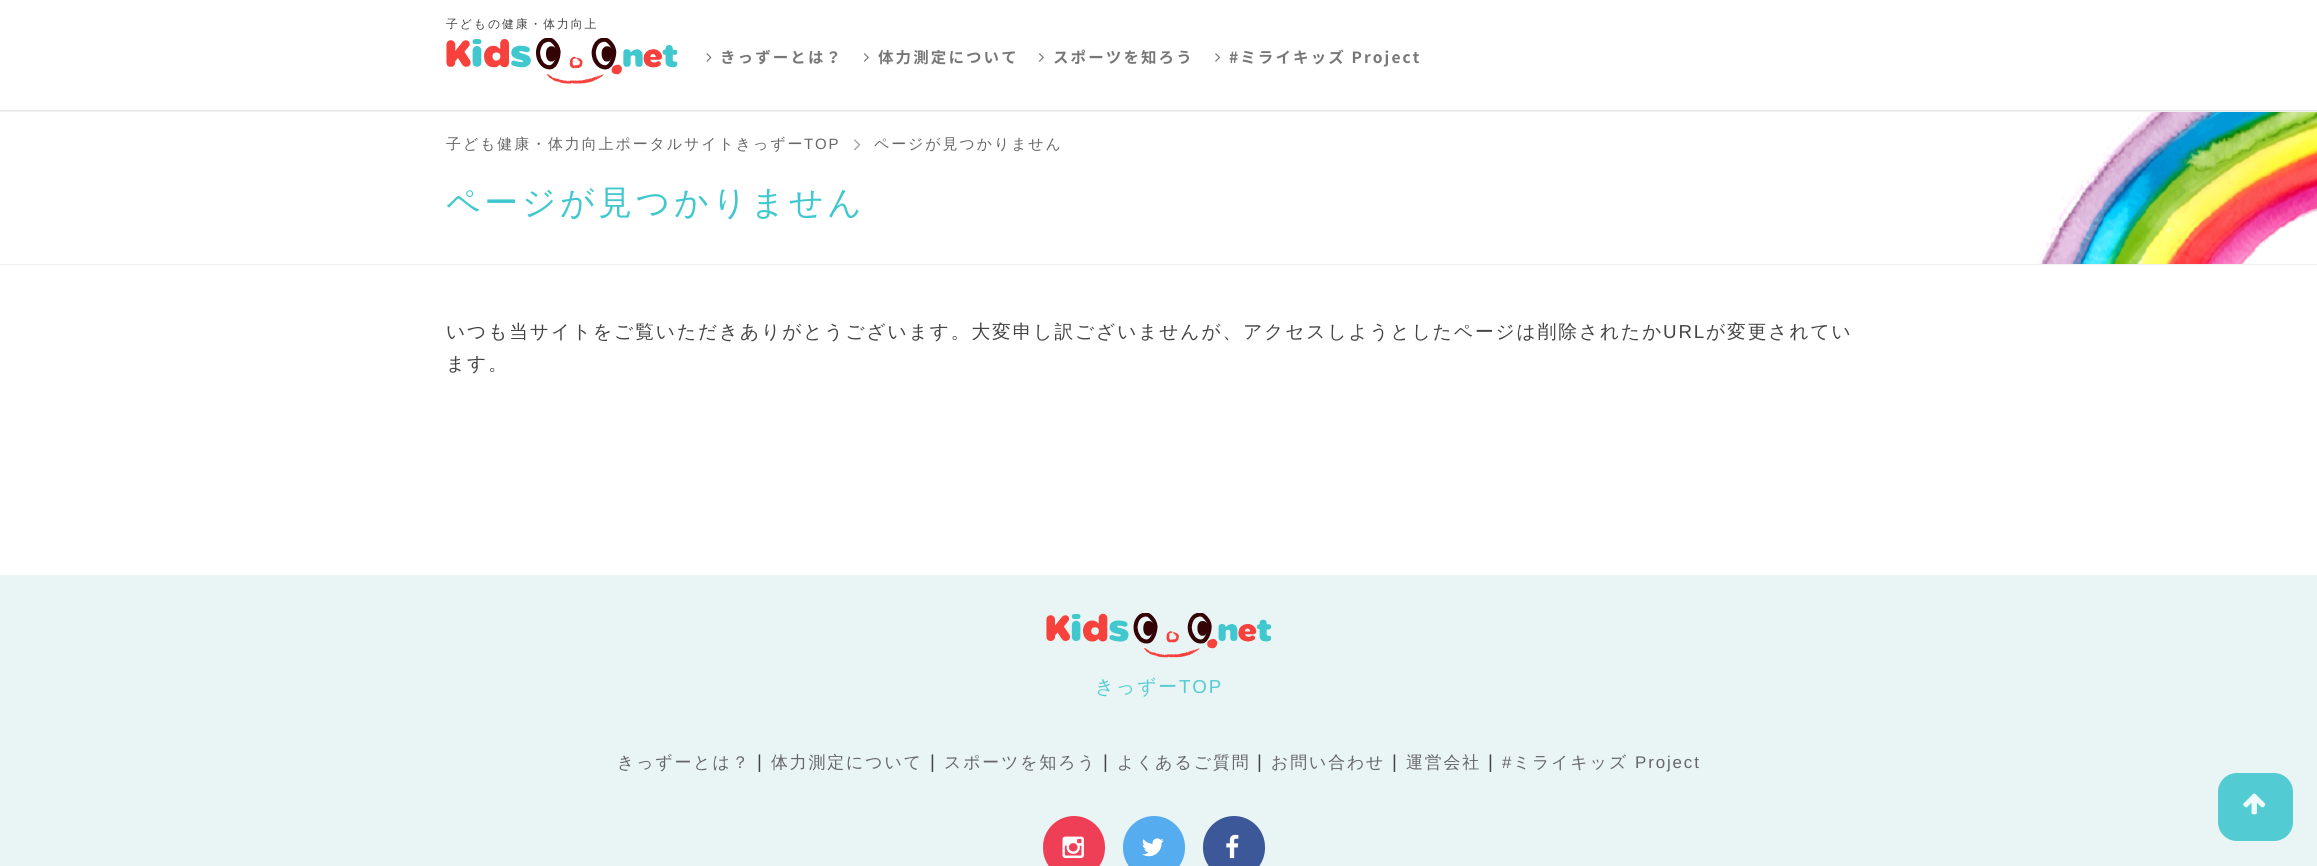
#include <cairo.h>
#include <math.h>
#include <stddef.h>

static cairo_t *ctx;

static void ink(unsigned color) {
    cairo_set_source_rgb(ctx, (color >> 16) / 255.0, (color >> 8 & 255) / 255.0, (color & 255) / 255.0);
}

static void write_spaced(double x, double y, const char *s, double letter, double word) {
    cairo_move_to(ctx, x, y);
    while (*s) {
        char ch[5] = {0};
        int n = 0;
        do ch[n++] = *s++; while ((*s & 0xC0) == 0x80);
        cairo_show_text(ctx, ch);
        cairo_rel_move_to(ctx, letter + word * (*ch == ' '), 0);
    }
}

static void block(double x, double y, double w, double h, unsigned color) {
    ink(color);
    cairo_rectangle(ctx, x, y, w, h);
    cairo_fill(ctx);
}

static void round_path(double x, double y, double w, double h, double r) {
    cairo_new_sub_path(ctx);
    cairo_arc(ctx, x + w - r, y + h - r, r, 0, M_PI / 2);
    cairo_arc(ctx, x + r, y + h - r, r, M_PI / 2, M_PI);
    cairo_arc(ctx, x + r, y + r, r, M_PI, 1.5 * M_PI);
    cairo_arc(ctx, x + w - r, y + r, r, 1.5 * M_PI, 2 * M_PI);
    cairo_close_path(ctx);
}

static void paste(const char *path, double x, double y, double w, double h) {
    cairo_surface_t *image = cairo_image_surface_create_from_png(path);
    cairo_save(ctx);
    cairo_set_source_surface(ctx, image, x, y);
    cairo_rectangle(ctx, x, y, w, h);
    cairo_fill(ctx);
    cairo_restore(ctx);
    cairo_surface_destroy(image);
}

int main(void) {
    cairo_surface_t *surface = cairo_image_surface_create(CAIRO_FORMAT_RGB24, 2317, 866);
    ctx = cairo_create(surface);
    cairo_font_options_t *options = cairo_font_options_create();
    cairo_font_options_set_hint_metrics(options, CAIRO_HINT_METRICS_OFF);
    cairo_font_options_set_hint_style(options, CAIRO_HINT_STYLE_NONE);
    cairo_set_font_options(ctx, options);
    cairo_set_miter_limit(ctx, 4);
    ink(0xffffff);
    cairo_paint(ctx);
    block(0, 110, 2317, 1, 0xe7e7e7);
    cairo_select_font_face(ctx, "WenQuanYi Zen Hei Medium", CAIRO_FONT_SLANT_NORMAL, CAIRO_FONT_WEIGHT_NORMAL);
    cairo_set_font_size(ctx, 11.9);
    ink(0x444444);
    write_spaced(446, 28, "子どもの健康・体力向上", 1.88, 0);
    paste("pic1.png", 446, 38, 232, 46);
    paste("pic2.png", 706, 53, 6, 9);
    cairo_select_font_face(ctx, "Noto Sans JP", CAIRO_FONT_SLANT_NORMAL, CAIRO_FONT_WEIGHT_BOLD);
    cairo_set_font_size(ctx, 15.5);
    ink(0x777777);
    write_spaced(720, 63, "きっずーとは？", 2.1, 0);
    paste("pic3.png", 863, 53, 6, 9);
    write_spaced(878, 63, "体力測定について", 2.1, 0);
    paste("pic3.png", 1038, 53, 6, 9);
    write_spaced(1053, 63, "スポーツを知ろう", 2.1, 0);
    paste("pic4.png", 1215, 53, 6, 9);
    write_spaced(1229, 63, "#ミライキッズ Project", 2.1, 0);
    paste("pic5.png", 2037, 112, 280, 152);
    block(0, 111, 2317, 1, 0xeeeeee);
    block(0, 264, 2317, 1, 0xeeeeee);
    cairo_select_font_face(ctx, "WenQuanYi Zen Hei Medium", CAIRO_FONT_SLANT_NORMAL, CAIRO_FONT_WEIGHT_NORMAL);
    cairo_set_font_size(ctx, 15);
    ink(0x666666);
    write_spaced(446, 149, "子ども健康・体力向上ポータルサイトきっずー", 1.88, 0);
    cairo_select_font_face(ctx, "Liberation Sans", CAIRO_FONT_SLANT_NORMAL, CAIRO_FONT_WEIGHT_NORMAL);
    write_spaced(804, 149, "TOP", 1.88, 0);
    paste("pic6.png", 854, 139, 7, 12);
    cairo_select_font_face(ctx, "WenQuanYi Zen Hei Medium", CAIRO_FONT_SLANT_NORMAL, CAIRO_FONT_WEIGHT_NORMAL);
    write_spaced(874, 149, "ページが見つかりません", 1.88, 0);
    cairo_set_font_size(ctx, 33.75);
    ink(0x41c8ce);
    write_spaced(446, 214, "ページが見つかりません", 3.75, 0);
    cairo_set_font_size(ctx, 18.75);
    ink(0x444444);
    write_spaced(446, 338, "いつも当サイトをご覧いただきありがとうございます。大変申し訳ございませんが、アクセスしようとしたページは削除されたか", 1.88, 0);
    cairo_select_font_face(ctx, "Liberation Sans", CAIRO_FONT_SLANT_NORMAL, CAIRO_FONT_WEIGHT_NORMAL);
    write_spaced(1663, 338, "URL", 1.88, 0);
    cairo_select_font_face(ctx, "WenQuanYi Zen Hei Medium", CAIRO_FONT_SLANT_NORMAL, CAIRO_FONT_WEIGHT_NORMAL);
    write_spaced(1706, 338, "が変更されてい", 1.88, 0);
    write_spaced(446, 370, "ます。", 1.88, 0);
    block(0, 575, 2317, 291, 0xe9f4f4);
    paste("pic7.png", 1046, 613, 225, 45);
    ink(0x55cbd2);
    write_spaced(1095, 693, "きっずー", 1.88, 0);
    cairo_select_font_face(ctx, "Liberation Sans", CAIRO_FONT_SLANT_NORMAL, CAIRO_FONT_WEIGHT_NORMAL);
    write_spaced(1179, 693, "TOP", 1.88, 0);
    cairo_select_font_face(ctx, "WenQuanYi Zen Hei Medium", CAIRO_FONT_SLANT_NORMAL, CAIRO_FONT_WEIGHT_NORMAL);
    cairo_set_font_size(ctx, 16.9);
    ink(0x666666);
    write_spaced(617, 768, "きっずーとは？", 1.88, 0);
    cairo_select_font_face(ctx, "Liberation Sans", CAIRO_FONT_SLANT_NORMAL, CAIRO_FONT_WEIGHT_NORMAL);
    cairo_set_font_size(ctx, 18.75);
    ink(0x444444);
    write_spaced(757, 768, "|", 1.88, 0);
    cairo_select_font_face(ctx, "WenQuanYi Zen Hei Medium", CAIRO_FONT_SLANT_NORMAL, CAIRO_FONT_WEIGHT_NORMAL);
    cairo_set_font_size(ctx, 16.9);
    ink(0x666666);
    write_spaced(771, 768, "体力測定について", 1.88, 0);
    cairo_select_font_face(ctx, "Liberation Sans", CAIRO_FONT_SLANT_NORMAL, CAIRO_FONT_WEIGHT_NORMAL);
    cairo_set_font_size(ctx, 18.75);
    ink(0x444444);
    write_spaced(930, 768, "|", 1.88, 0);
    cairo_select_font_face(ctx, "WenQuanYi Zen Hei Medium", CAIRO_FONT_SLANT_NORMAL, CAIRO_FONT_WEIGHT_NORMAL);
    cairo_set_font_size(ctx, 16.9);
    ink(0x666666);
    write_spaced(944, 768, "スポーツを知ろう", 1.88, 0);
    cairo_select_font_face(ctx, "Liberation Sans", CAIRO_FONT_SLANT_NORMAL, CAIRO_FONT_WEIGHT_NORMAL);
    cairo_set_font_size(ctx, 18.75);
    ink(0x444444);
    write_spaced(1103, 768, "|", 1.88, 0);
    cairo_select_font_face(ctx, "WenQuanYi Zen Hei Medium", CAIRO_FONT_SLANT_NORMAL, CAIRO_FONT_WEIGHT_NORMAL);
    cairo_set_font_size(ctx, 16.9);
    ink(0x666666);
    write_spaced(1117, 768, "よくあるご質問", 1.88, 0);
    cairo_select_font_face(ctx, "Liberation Sans", CAIRO_FONT_SLANT_NORMAL, CAIRO_FONT_WEIGHT_NORMAL);
    cairo_set_font_size(ctx, 18.75);
    ink(0x444444);
    write_spaced(1257, 768, "|", 1.88, 0);
    cairo_select_font_face(ctx, "WenQuanYi Zen Hei Medium", CAIRO_FONT_SLANT_NORMAL, CAIRO_FONT_WEIGHT_NORMAL);
    cairo_set_font_size(ctx, 16.9);
    ink(0x666666);
    write_spaced(1271, 768, "お問い合わせ", 1.88, 0);
    cairo_select_font_face(ctx, "Liberation Sans", CAIRO_FONT_SLANT_NORMAL, CAIRO_FONT_WEIGHT_NORMAL);
    cairo_set_font_size(ctx, 18.75);
    ink(0x444444);
    write_spaced(1392, 768, "|", 1.88, 0);
    cairo_select_font_face(ctx, "WenQuanYi Zen Hei Medium", CAIRO_FONT_SLANT_NORMAL, CAIRO_FONT_WEIGHT_NORMAL);
    cairo_set_font_size(ctx, 16.9);
    ink(0x666666);
    write_spaced(1406, 768, "運営会社", 1.88, 0);
    cairo_select_font_face(ctx, "Liberation Sans", CAIRO_FONT_SLANT_NORMAL, CAIRO_FONT_WEIGHT_NORMAL);
    cairo_set_font_size(ctx, 18.75);
    ink(0x444444);
    write_spaced(1488, 768, "|", 1.88, 0);
    cairo_set_font_size(ctx, 16.9);
    ink(0x666666);
    write_spaced(1502, 768, "#", 1.88, 0);
    cairo_select_font_face(ctx, "WenQuanYi Zen Hei Medium", CAIRO_FONT_SLANT_NORMAL, CAIRO_FONT_WEIGHT_NORMAL);
    write_spaced(1513, 768, "ミライキッズ", 1.88, 0);
    cairo_select_font_face(ctx, "Liberation Sans", CAIRO_FONT_SLANT_NORMAL, CAIRO_FONT_WEIGHT_NORMAL);
    write_spaced(1635, 768, "Project", 1.88, 0);
    ink(0xef3f56);
    round_path(1043, 816, 62, 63, 31);
    cairo_fill(ctx);
    paste("pic8.png", 1062, 836, 22, 23);
    ink(0x55acee);
    round_path(1123, 816, 62, 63, 31);
    cairo_fill(ctx);
    paste("pic9.png", 1142, 838, 22, 19);
    ink(0x3c5898);
    round_path(1203, 816, 62, 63, 31);
    cairo_fill(ctx);
    paste("pic10.png", 1226, 834, 13, 25);
    ink(0x52ccd2);
    round_path(2218, 773, 75, 68, 19);
    cairo_fill(ctx);
    paste("pic11.png", 2243, 793, 23, 22);
    cairo_surface_write_to_png(surface, "screenshot.png");
    cairo_font_options_destroy(options);
    cairo_destroy(ctx);
    cairo_surface_destroy(surface);
    return 0;
}
